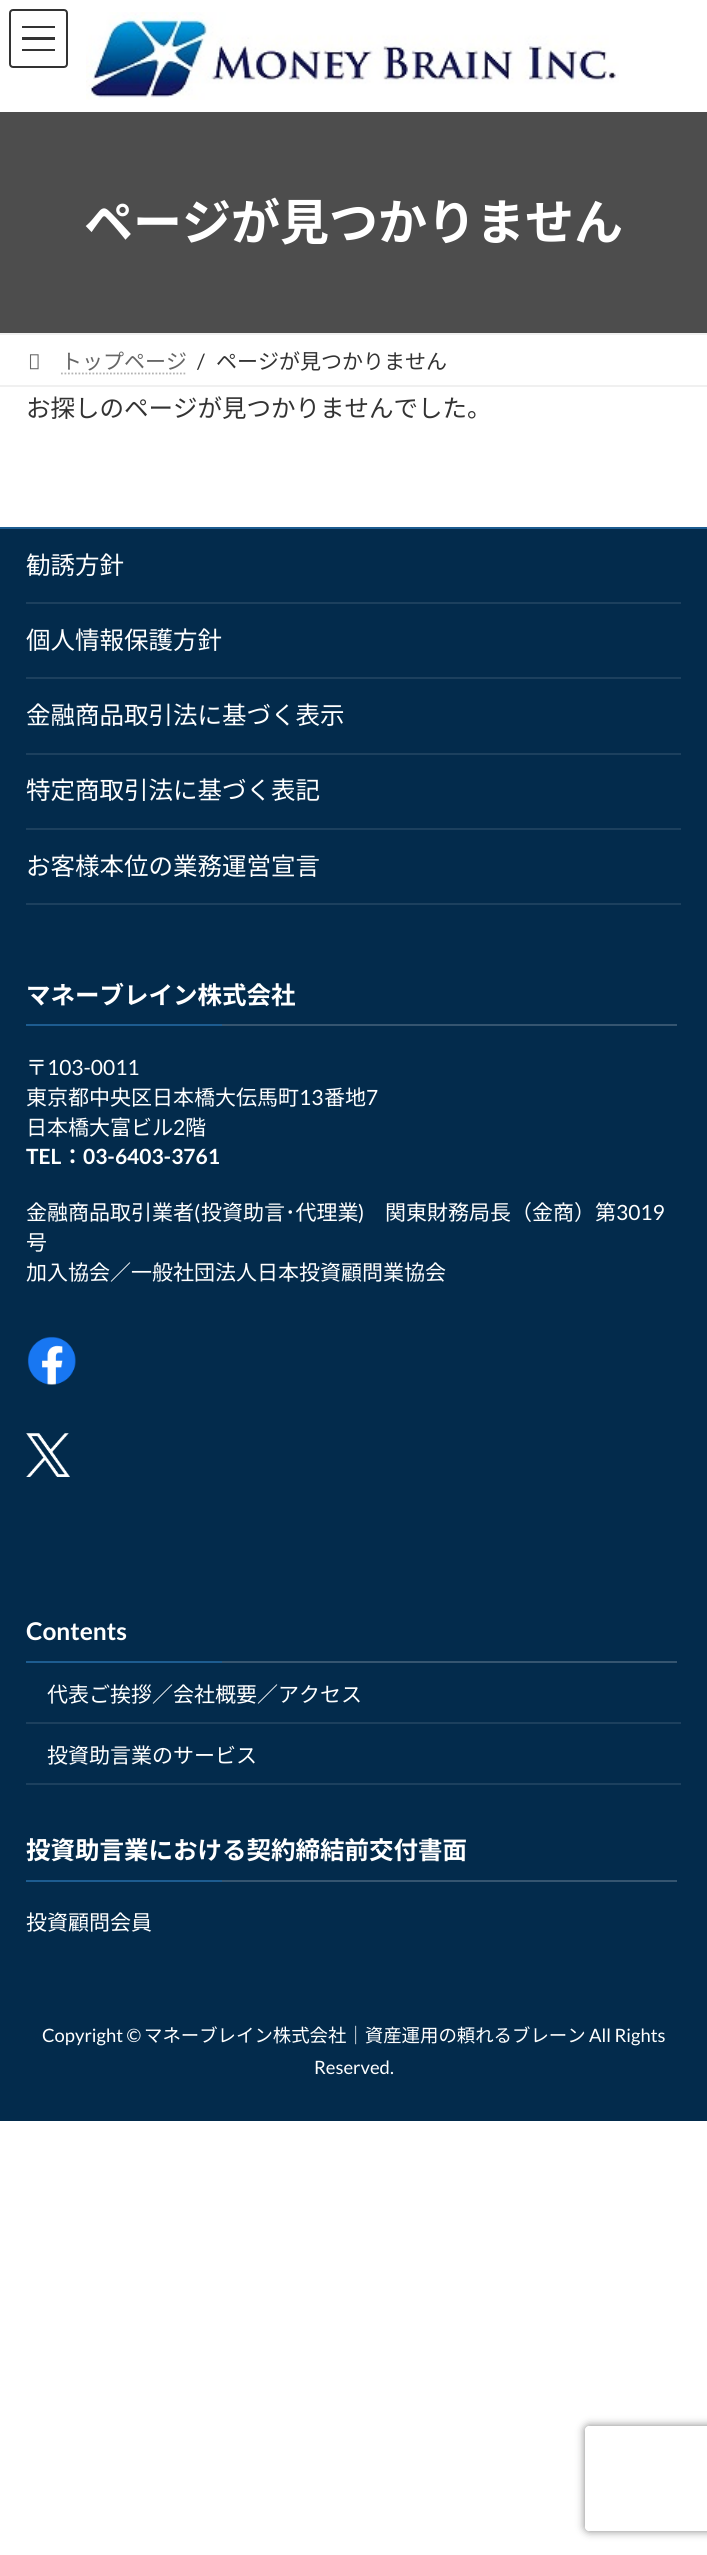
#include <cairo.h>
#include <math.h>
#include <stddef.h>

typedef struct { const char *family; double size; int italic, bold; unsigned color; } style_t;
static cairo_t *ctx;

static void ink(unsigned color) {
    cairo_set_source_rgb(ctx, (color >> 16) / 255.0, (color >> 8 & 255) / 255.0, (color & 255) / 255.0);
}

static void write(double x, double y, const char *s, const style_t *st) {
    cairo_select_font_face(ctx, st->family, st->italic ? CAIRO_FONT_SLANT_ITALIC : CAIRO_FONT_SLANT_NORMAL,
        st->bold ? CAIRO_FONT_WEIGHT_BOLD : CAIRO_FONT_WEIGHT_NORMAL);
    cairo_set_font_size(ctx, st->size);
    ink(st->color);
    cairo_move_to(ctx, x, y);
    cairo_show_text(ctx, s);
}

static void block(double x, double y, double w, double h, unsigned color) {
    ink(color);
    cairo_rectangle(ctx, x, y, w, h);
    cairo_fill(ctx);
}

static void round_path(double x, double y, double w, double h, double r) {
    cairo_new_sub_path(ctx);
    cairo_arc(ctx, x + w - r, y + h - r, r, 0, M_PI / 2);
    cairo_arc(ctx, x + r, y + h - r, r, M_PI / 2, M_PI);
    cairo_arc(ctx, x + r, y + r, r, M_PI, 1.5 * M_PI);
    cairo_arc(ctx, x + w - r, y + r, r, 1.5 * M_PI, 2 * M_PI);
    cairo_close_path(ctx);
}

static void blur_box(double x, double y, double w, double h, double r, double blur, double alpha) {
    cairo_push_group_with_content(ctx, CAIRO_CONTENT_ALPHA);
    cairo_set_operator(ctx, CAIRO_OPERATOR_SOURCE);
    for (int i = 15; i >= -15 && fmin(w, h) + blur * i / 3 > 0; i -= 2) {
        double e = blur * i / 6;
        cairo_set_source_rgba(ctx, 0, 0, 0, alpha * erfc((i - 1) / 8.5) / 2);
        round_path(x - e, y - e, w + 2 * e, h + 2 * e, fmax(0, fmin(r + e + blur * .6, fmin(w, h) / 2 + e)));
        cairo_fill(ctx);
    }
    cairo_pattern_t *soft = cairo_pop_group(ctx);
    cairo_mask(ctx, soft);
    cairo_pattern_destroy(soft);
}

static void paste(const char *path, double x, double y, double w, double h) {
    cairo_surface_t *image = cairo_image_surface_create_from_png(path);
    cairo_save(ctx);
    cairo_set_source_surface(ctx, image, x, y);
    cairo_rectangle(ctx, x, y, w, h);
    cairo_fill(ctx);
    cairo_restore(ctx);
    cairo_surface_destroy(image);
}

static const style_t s1 = {"Noto Sans JP", 49, 0, 1, 0xffffff};
static const style_t s2 = {"Noto Sans JP", 21, 0, 0, 0x666666};
static const style_t s3 = {"Lato", 21, 0, 0, 0x333333};
static const style_t s4 = {"Noto Sans JP", 21, 0, 0, 0x333333};
static const style_t s5 = {"Noto Sans JP", 24.5, 0, 0, 0x333333};
static const style_t s6 = {"Noto Sans JP", 24.5, 0, 0, 0xffffff};
static const style_t s7 = {"Noto Sans JP", 24.5, 0, 1, 0xffffff};
static const style_t s8 = {"Noto Sans JP", 21, 0, 0, 0xffffff};
static const style_t s9 = {"Lato", 21, 0, 0, 0xffffff};
static const style_t s10 = {"Lato", 21, 0, 1, 0xffffff};
static const style_t s11 = {"Noto Sans JP", 21, 0, 1, 0xffffff};
static const style_t s12 = {"Lato", 24.5, 0, 1, 0xffffff};
static const style_t s13 = {"Lato", 18.4, 0, 0, 0xffffff};
static const style_t s14 = {"Noto Sans JP", 18.4, 0, 0, 0xffffff};

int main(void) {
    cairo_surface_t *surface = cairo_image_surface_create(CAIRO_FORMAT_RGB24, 707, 2555);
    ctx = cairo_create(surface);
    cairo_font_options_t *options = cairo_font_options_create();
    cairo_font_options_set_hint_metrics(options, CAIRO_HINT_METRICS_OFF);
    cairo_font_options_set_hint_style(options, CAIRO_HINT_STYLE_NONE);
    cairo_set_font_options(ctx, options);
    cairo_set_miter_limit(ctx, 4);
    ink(0xffffff);
    cairo_paint(ctx);
    block(22, 26, 33, 2, 0x333333);
    block(22, 37, 33, 3, 0x333333);
    block(22, 49, 33, 2, 0x333333);
    round_path(10, 10, 57, 57, 3);
    cairo_stroke(ctx);
    paste("pic1.png", 86, 12, 533, 88);
    block(0, 112, 707, 221, 0x4d4d4d);
    write(84, 240, "ページが見つかりません", &s1);
    block(0, 333, 707, 2, 0xf0f0f0);
    block(0, 385, 707, 2, 0xf0f0f0);
    paste("pic2.png", 29, 354, 10, 16);
    write(61, 369, "トップページ", &s2);
    cairo_new_path(ctx);
    cairo_move_to(ctx, 61, 373.5);
    cairo_line_to(ctx, 187, 373.5);
    ink(0xb3b3b3);
    cairo_set_line_width(ctx, 1.8);
    cairo_set_dash(ctx, (double[]){1.75, 1.75}, 2, 0);
    cairo_stroke(ctx);
    write(197, 369, "/", &s3);
    write(216, 369, "ページが見つかりません", &s4);
    write(26, 417, "お探しのページが見つかりませんでした。", &s5);
    block(0, 529, 707, 1592, 0x032b4c);
    block(0, 527, 707, 2, 0x1d5c90);
    block(26, 602, 655, 2, 0x1c405e);
    write(26, 574, "勧誘方針", &s6);
    block(26, 677, 655, 2, 0x1c405e);
    write(26, 649, "個人情報保護方針", &s6);
    block(26, 753, 655, 2, 0x1c405e);
    write(26, 724, "金融商品取引法に基づく表示", &s6);
    block(26, 828, 655, 2, 0x1c405e);
    write(26, 799, "特定商取引法に基づく表記", &s6);
    block(26, 903, 655, 2, 0x1c405e);
    write(26, 875, "お客様本位の業務運営宣言", &s6);
    block(222, 1024, 455, 2, 0x355570);
    write(26, 1004, "マネーブレイン株式会社", &s7);
    block(26, 1024, 196, 2, 0x1d5c90);
    write(26, 1075, "〒", &s8);
    write(47, 1075, "103-0011", &s9);
    write(26, 1105, "東京都中央区日本橋大伝馬町", &s8);
    write(299, 1105, "13", &s9);
    write(324, 1105, "番地", &s8);
    write(366, 1105, "7", &s9);
    write(26, 1135, "日本橋大富ビル", &s8);
    write(173, 1135, "2", &s9);
    write(185, 1135, "階", &s8);
    write(26, 1164, "TEL", &s10);
    write(62, 1164, "：", &s11);
    write(83, 1164, "03-6403-3761", &s10);
    write(26, 1220, "金融商品取引業者", &s8);
    write(194, 1220, "(", &s9);
    write(201, 1220, "投資助言･代理業", &s8);
    write(358, 1220, ")", &s9);
    write(385, 1220, "関東財務局長（金商）第", &s8);
    write(616, 1220, "3019", &s9);
    write(26, 1250, "号", &s8);
    write(26, 1280, "加入協会／一般社団法人日本投資顧問業協会", &s8);
    paste("pic3.png", 27, 1336, 49, 49);
    paste("pic4.png", 26, 1433, 44, 44);
    block(222, 1661, 455, 2, 0x355570);
    write(26, 1640, "Contents", &s12);
    block(26, 1661, 196, 2, 0x1d5c90);
    block(26, 1722, 655, 2, 0x1c405e);
    write(47, 1702, "代表ご挨拶／会社概要／アクセス", &s8);
    block(26, 1783, 655, 2, 0x1c405e);
    write(47, 1763, "投資助言業のサービス", &s8);
    block(222, 1880, 455, 2, 0x355570);
    write(26, 1859, "投資助言業における契約締結前交付書面", &s7);
    block(26, 1880, 196, 2, 0x1d5c90);
    write(26, 1930, "投資顧問会員", &s8);
    write(42, 2042, "Copyright ©", &s13);
    write(144, 2042, "マネーブレイン株式会社｜資産運用の頼れるブレーン", &s14);
    write(589, 2042, "All Rights", &s13);
    write(314, 2074, "Reserved.", &s13);
    cairo_save(ctx);
    cairo_set_fill_rule(ctx, CAIRO_FILL_RULE_EVEN_ODD);
    cairo_new_path(ctx);
    cairo_move_to(ctx, 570, 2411);
    cairo_line_to(ctx, 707, 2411);
    cairo_line_to(ctx, 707, 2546);
    cairo_line_to(ctx, 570, 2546);
    cairo_close_path(ctx);
    cairo_move_to(ctx, 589, 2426);
    cairo_line_to(ctx, 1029, 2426);
    cairo_curve_to(ctx, 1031, 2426, 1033, 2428, 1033, 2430);
    cairo_line_to(ctx, 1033, 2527);
    cairo_curve_to(ctx, 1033, 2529, 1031, 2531, 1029, 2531);
    cairo_line_to(ctx, 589, 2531);
    cairo_curve_to(ctx, 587, 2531, 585, 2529, 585, 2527);
    cairo_line_to(ctx, 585, 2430);
    cairo_curve_to(ctx, 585, 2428, 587, 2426, 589, 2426);
    cairo_close_path(ctx);
    cairo_clip(ctx);
    ink(0x808080);
    blur_box(585, 2426, 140, 105, 4, 4.5, 1);
    cairo_restore(ctx);
    cairo_surface_write_to_png(surface, "screenshot.png");
    cairo_font_options_destroy(options);
    cairo_destroy(ctx);
    cairo_surface_destroy(surface);
    return 0;
}
